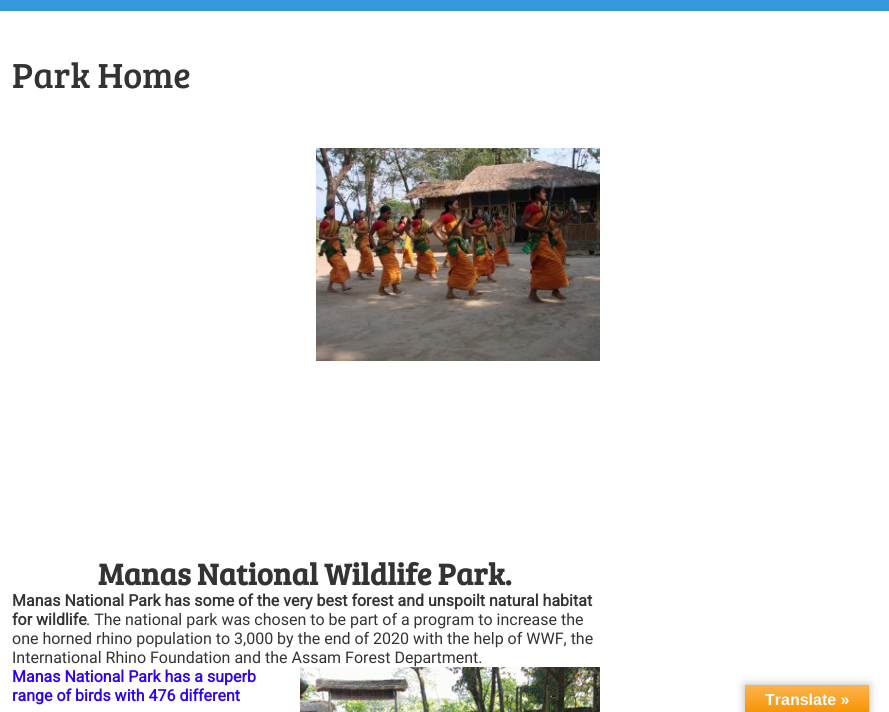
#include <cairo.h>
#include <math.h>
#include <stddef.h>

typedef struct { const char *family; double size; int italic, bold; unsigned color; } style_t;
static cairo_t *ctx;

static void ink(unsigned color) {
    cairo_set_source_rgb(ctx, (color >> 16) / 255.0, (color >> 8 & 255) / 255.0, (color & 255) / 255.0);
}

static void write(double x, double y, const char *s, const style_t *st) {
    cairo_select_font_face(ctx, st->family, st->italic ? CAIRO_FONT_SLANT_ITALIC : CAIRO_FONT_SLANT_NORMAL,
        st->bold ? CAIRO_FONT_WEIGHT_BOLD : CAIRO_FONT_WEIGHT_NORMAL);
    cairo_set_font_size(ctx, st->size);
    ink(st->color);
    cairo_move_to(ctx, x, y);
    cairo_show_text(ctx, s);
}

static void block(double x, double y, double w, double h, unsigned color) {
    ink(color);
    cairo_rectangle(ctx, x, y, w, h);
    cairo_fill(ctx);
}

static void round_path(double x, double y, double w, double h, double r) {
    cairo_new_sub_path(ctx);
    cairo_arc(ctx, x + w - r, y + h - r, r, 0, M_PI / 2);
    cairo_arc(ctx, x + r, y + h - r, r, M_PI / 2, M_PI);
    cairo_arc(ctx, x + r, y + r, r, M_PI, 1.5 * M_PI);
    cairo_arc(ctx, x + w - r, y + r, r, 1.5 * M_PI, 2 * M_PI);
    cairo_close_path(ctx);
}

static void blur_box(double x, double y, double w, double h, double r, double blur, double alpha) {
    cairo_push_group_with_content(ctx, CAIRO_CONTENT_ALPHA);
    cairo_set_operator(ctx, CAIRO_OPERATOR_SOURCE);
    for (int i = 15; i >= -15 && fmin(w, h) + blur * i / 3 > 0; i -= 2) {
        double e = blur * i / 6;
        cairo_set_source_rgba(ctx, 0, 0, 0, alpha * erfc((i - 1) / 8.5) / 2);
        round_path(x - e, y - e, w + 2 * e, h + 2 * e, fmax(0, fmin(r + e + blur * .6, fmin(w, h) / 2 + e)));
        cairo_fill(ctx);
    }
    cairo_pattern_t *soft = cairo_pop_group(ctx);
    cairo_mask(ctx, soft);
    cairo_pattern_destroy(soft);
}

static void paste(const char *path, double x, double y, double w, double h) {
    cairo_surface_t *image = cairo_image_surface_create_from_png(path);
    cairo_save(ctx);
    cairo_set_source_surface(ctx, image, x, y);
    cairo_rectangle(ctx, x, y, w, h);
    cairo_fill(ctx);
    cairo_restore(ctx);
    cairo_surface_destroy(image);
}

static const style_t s1 = {"Bree Serif", 36, 0, 0, 0x333333};
static const style_t s2 = {"Bree Serif", 30.75, 0, 1, 0x333333};
static const style_t s3 = {"Roboto", 16, 0, 1, 0x333333};
static const style_t s4 = {"Roboto", 16, 0, 0, 0x333333};
static const style_t s5 = {"Roboto", 16, 0, 1, 0x3000f4};
static const style_t s6 = {"Liberation Sans", 16, 0, 1, 0xffffff};

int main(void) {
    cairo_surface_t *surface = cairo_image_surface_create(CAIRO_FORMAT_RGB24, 889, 712);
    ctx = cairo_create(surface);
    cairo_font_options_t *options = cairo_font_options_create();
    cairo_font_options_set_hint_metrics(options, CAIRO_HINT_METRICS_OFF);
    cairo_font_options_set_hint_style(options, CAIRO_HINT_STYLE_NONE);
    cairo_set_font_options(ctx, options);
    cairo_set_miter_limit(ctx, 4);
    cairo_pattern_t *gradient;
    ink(0xffffff);
    cairo_paint(ctx);
    block(0, 0, 889, 11, 0x3498db);
    write(12, 88, "Park Home", &s1);
    paste("pic1.png", 316, 148, 284, 213);
    write(98, 585, "Manas National Wildlife Park.", &s2);
    write(12, 606, "Manas National Park has some of the very best forest and unspoilt natural habitat", &s3);
    write(12, 625, "for wildlife", &s3);
    write(86, 625, ". The national park was chosen to be part of a program to increase the", &s4);
    write(12, 644, "one horned rhino population to 3,000 by the end of 2020 with the help of WWF, the", &s4);
    write(12, 663, "International Rhino Foundation and the Assam Forest Department.", &s4);
    write(12, 682, "Manas National Park has a superb", &s5);
    paste("pic2.png", 300, 667, 300, 45);
    write(12, 701, "range of birds with 476 different", &s5);
    ink(0x000000);
    blur_box(745, 685, 124, 27, 0, 4.5, 0.3);
    gradient = cairo_pattern_create_linear(807, 685, 807, 712);
    cairo_pattern_add_color_stop_rgba(gradient, 0, 0.984, 0.706, 0.314, 1);
    cairo_pattern_add_color_stop_rgba(gradient, 1, 0.973, 0.58, 0.024, 1);
    cairo_set_source(ctx, gradient);
    cairo_pattern_destroy(gradient);
    cairo_rectangle(ctx, 745, 685, 124, 27);
    cairo_fill(ctx);
    write(765, 705, "Translate »", &s6);
    cairo_surface_write_to_png(surface, "screenshot.png");
    cairo_font_options_destroy(options);
    cairo_destroy(ctx);
    cairo_surface_destroy(surface);
    return 0;
}
